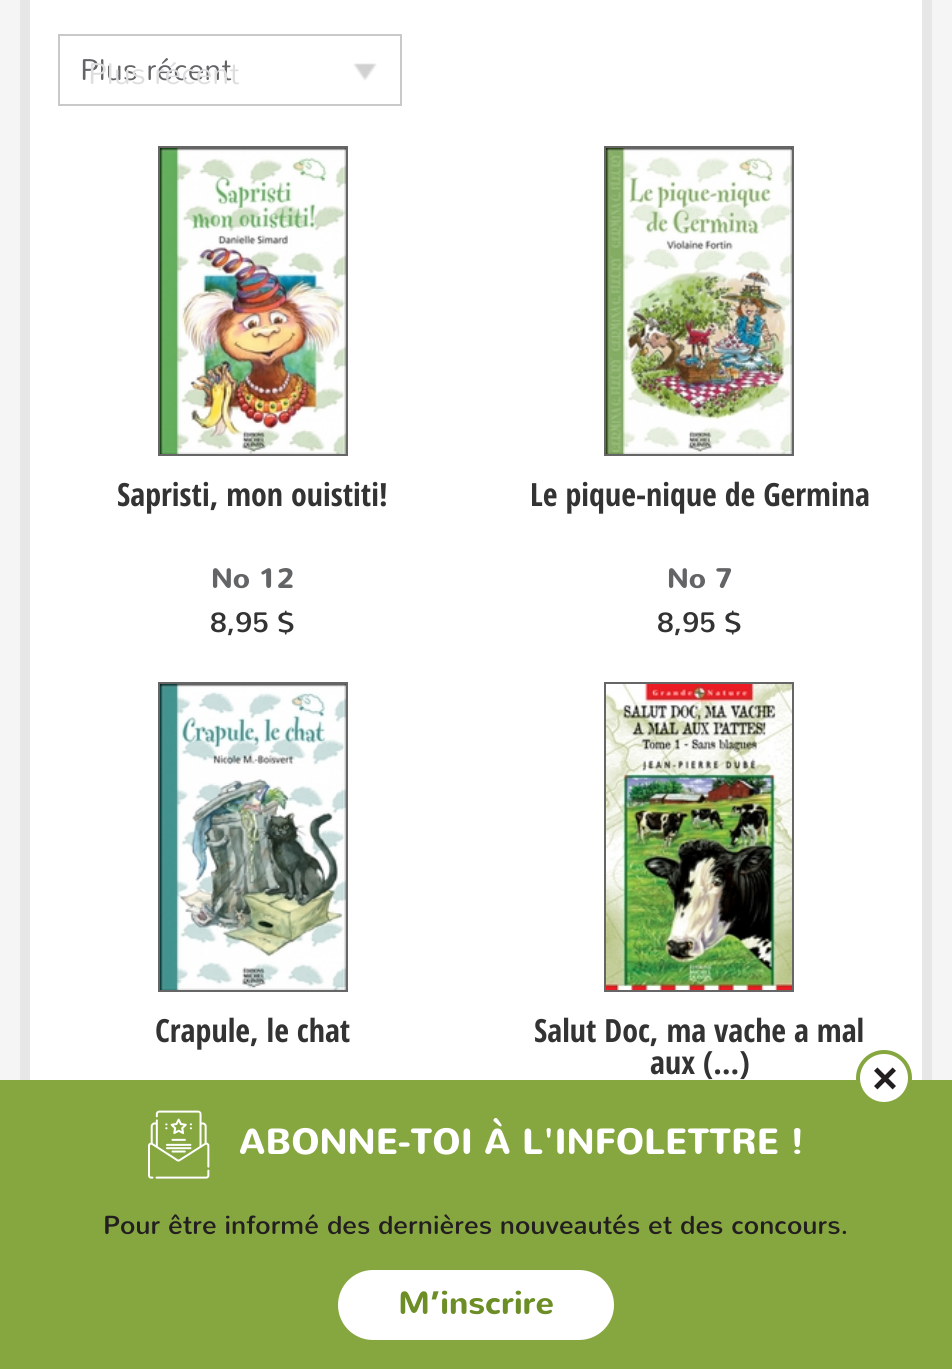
#include <cairo.h>
#include <math.h>
#include <stddef.h>

typedef struct { const char *family; double size; int italic, bold; unsigned color; } style_t;
static cairo_t *ctx;

static void ink(unsigned color) {
    cairo_set_source_rgb(ctx, (color >> 16) / 255.0, (color >> 8 & 255) / 255.0, (color & 255) / 255.0);
}

static void write(double x, double y, const char *s, const style_t *st) {
    cairo_select_font_face(ctx, st->family, st->italic ? CAIRO_FONT_SLANT_ITALIC : CAIRO_FONT_SLANT_NORMAL,
        st->bold ? CAIRO_FONT_WEIGHT_BOLD : CAIRO_FONT_WEIGHT_NORMAL);
    cairo_set_font_size(ctx, st->size);
    ink(st->color);
    cairo_move_to(ctx, x, y);
    cairo_show_text(ctx, s);
}

static void block(double x, double y, double w, double h, unsigned color) {
    ink(color);
    cairo_rectangle(ctx, x, y, w, h);
    cairo_fill(ctx);
}

static void round_path(double x, double y, double w, double h, double r) {
    cairo_new_sub_path(ctx);
    cairo_arc(ctx, x + w - r, y + h - r, r, 0, M_PI / 2);
    cairo_arc(ctx, x + r, y + h - r, r, M_PI / 2, M_PI);
    cairo_arc(ctx, x + r, y + r, r, M_PI, 1.5 * M_PI);
    cairo_arc(ctx, x + w - r, y + r, r, 1.5 * M_PI, 2 * M_PI);
    cairo_close_path(ctx);
}

static void paste(const char *path, double x, double y, double w, double h) {
    cairo_surface_t *image = cairo_image_surface_create_from_png(path);
    cairo_save(ctx);
    cairo_set_source_surface(ctx, image, x, y);
    cairo_rectangle(ctx, x, y, w, h);
    cairo_fill(ctx);
    cairo_restore(ctx);
    cairo_surface_destroy(image);
}

static const style_t s1 = {"Nunito Light", 30, 0, 0, 0x636466};
static const style_t s2 = {"Nunito Light", 30, 0, 0, 0xdddede};
static const style_t s3 = {"Open Sans Condensed", 32, 0, 1, 0x333333};
static const style_t s4 = {"Nunito", 28, 0, 1, 0x636466};
static const style_t s5 = {"Nunito", 28, 0, 0, 0x333333};
static const style_t s6 = {"Nunito", 36, 0, 1, 0xffffff};
static const style_t s7 = {"Nunito", 26, 0, 0, 0x231f20};
static const style_t s8 = {"Nunito", 32, 0, 1, 0x6d8e27};

int main(void) {
    cairo_surface_t *surface = cairo_image_surface_create(CAIRO_FORMAT_RGB24, 952, 1369);
    ctx = cairo_create(surface);
    cairo_font_options_t *options = cairo_font_options_create();
    cairo_font_options_set_hint_metrics(options, CAIRO_HINT_METRICS_OFF);
    cairo_font_options_set_hint_style(options, CAIRO_HINT_STYLE_NONE);
    cairo_set_font_options(ctx, options);
    cairo_set_miter_limit(ctx, 4);
    ink(0xf5f5f5);
    cairo_paint(ctx);
    block(30, 0, 892, 1080, 0xffffff);
    cairo_rectangle(ctx, 25, -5, 902, 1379);
    ink(0xe7e7e7);
    cairo_set_line_width(ctx, 10);
    cairo_stroke(ctx);
    paste("pic1.png", 353, 63, 24, 18);
    cairo_rectangle(ctx, 59, 35, 342, 70);
    ink(0xcac9c9);
    cairo_set_line_width(ctx, 2);
    cairo_stroke(ctx);
    write(80, 80, "Plus récent", &s1);
    write(88, 84, "Plus récent", &s2);
    cairo_rectangle(ctx, 159, 147, 188, 308);
    ink(0x666666);
    cairo_stroke(ctx);
    paste("pic2.png", 160, 148, 186, 306);
    write(117, 506, "Sapristi, mon ouistiti!", &s3);
    write(211, 588, "No 12", &s4);
    write(210, 632, "8,95 $", &s5);
    cairo_rectangle(ctx, 605, 147, 188, 308);
    ink(0x666666);
    cairo_stroke(ctx);
    paste("pic3.png", 606, 148, 186, 306);
    write(530, 506, "Le pique-nique de Germina", &s3);
    write(667, 588, "No 7", &s4);
    write(657, 632, "8,95 $", &s5);
    cairo_rectangle(ctx, 159, 683, 188, 308);
    ink(0x666666);
    cairo_stroke(ctx);
    paste("pic4.png", 160, 684, 186, 306);
    write(155, 1042, "Crapule, le chat", &s3);
    cairo_rectangle(ctx, 605, 683, 188, 308);
    ink(0x666666);
    cairo_stroke(ctx);
    paste("pic5.png", 606, 684, 186, 306);
    write(534, 1042, "Salut Doc, ma vache a mal", &s3);
    write(650, 1074, "aux (…)", &s3);
    block(0, 1080, 952, 289, 0x86a740);
    ink(0xffffff);
    cairo_new_path(ctx);
    cairo_arc(ctx, 884, 1078, 26, 0, 2 * M_PI);
    cairo_fill_preserve(ctx);
    ink(0x86a740);
    cairo_set_line_width(ctx, 4);
    cairo_stroke(ctx);
    paste("pic6.png", 874, 1067, 22, 23);
    paste("pic7.png", 148, 1110, 62, 69);
    write(239, 1154, "ABONNE-TOI À L'INFOLETTRE !", &s6);
    write(103, 1234, "Pour être informé des dernières nouveautés et des concours.", &s7);
    ink(0xffffff);
    round_path(338, 1270, 276, 70, 35);
    cairo_fill(ctx);
    write(398, 1314, "M’inscrire", &s8);
    cairo_surface_write_to_png(surface, "screenshot.png");
    cairo_font_options_destroy(options);
    cairo_destroy(ctx);
    cairo_surface_destroy(surface);
    return 0;
}
